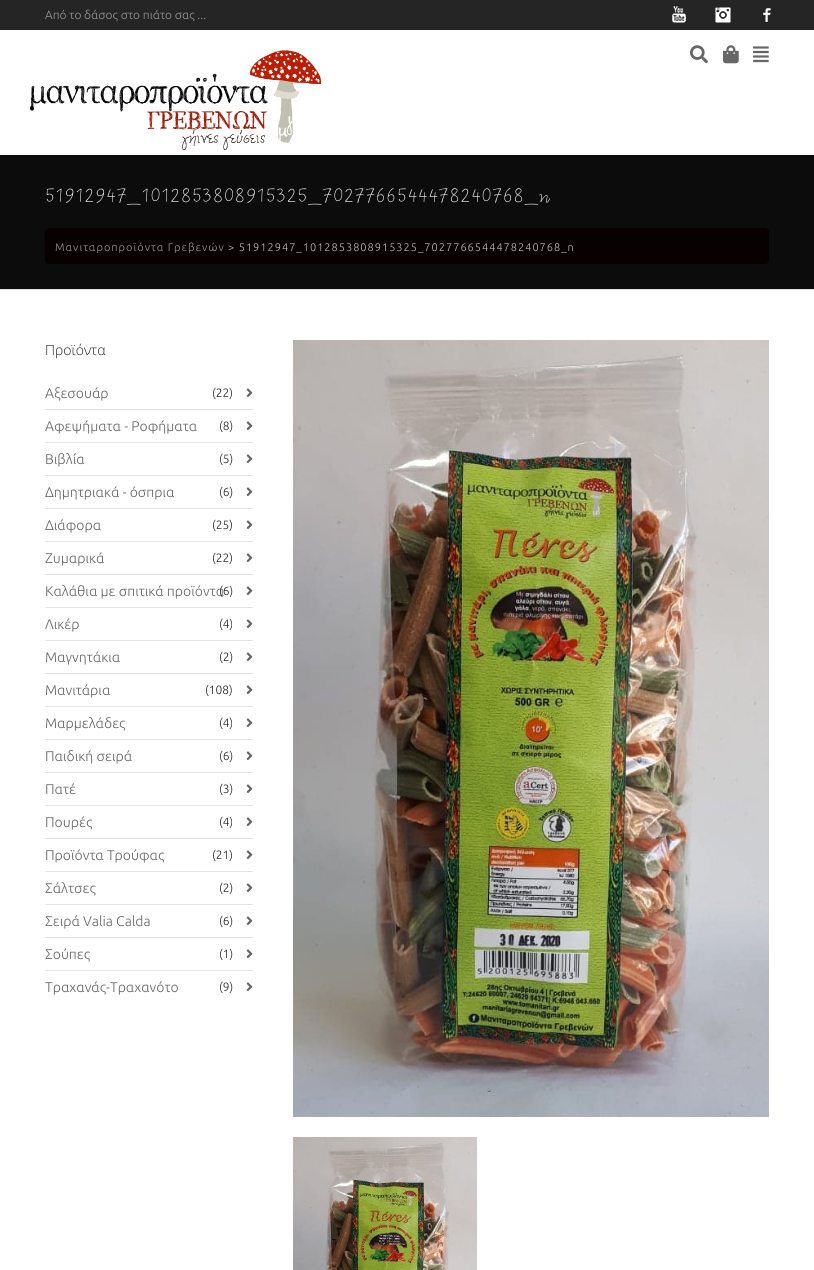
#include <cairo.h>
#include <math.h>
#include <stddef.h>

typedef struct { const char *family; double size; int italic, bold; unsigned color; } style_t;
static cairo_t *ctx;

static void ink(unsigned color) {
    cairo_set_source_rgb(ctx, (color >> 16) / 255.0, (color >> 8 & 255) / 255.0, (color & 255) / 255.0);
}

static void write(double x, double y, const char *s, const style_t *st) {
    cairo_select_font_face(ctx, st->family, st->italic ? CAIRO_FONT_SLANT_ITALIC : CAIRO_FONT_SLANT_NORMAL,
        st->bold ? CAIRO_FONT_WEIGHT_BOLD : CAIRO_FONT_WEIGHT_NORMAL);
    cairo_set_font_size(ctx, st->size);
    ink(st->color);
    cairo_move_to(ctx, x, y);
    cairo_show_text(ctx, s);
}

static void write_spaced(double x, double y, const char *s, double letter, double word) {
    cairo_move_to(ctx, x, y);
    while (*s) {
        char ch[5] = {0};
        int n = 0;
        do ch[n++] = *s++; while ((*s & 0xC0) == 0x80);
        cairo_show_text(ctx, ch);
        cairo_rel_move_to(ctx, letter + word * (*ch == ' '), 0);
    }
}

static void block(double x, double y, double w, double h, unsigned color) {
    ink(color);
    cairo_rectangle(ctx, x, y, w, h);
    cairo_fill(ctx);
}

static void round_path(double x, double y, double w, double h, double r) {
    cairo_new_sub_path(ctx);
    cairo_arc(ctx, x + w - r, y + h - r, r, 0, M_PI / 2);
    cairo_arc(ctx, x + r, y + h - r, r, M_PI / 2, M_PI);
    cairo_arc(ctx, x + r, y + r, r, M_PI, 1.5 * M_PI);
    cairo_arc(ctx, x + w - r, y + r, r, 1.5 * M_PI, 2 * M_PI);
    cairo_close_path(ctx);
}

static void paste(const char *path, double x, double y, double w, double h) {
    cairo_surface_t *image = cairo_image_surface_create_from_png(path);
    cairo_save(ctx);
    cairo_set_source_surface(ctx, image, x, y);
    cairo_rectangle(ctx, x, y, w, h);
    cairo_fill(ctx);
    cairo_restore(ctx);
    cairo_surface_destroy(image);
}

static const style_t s1 = {"Ubuntu Light", 12, 0, 0, 0x999999};
static const style_t s2 = {"Open Sans Light", 14, 0, 0, 0x222222};
static const style_t s3 = {"Ubuntu Light", 14, 0, 0, 0x666666};
static const style_t s4 = {"Ubuntu Light", 12, 0, 0, 0x222222};

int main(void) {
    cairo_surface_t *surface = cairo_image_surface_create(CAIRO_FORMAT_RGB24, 814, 1270);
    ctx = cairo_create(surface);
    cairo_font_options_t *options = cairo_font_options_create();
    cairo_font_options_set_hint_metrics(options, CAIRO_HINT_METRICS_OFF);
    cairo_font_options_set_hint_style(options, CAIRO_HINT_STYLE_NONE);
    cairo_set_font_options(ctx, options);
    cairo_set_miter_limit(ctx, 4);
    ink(0xffffff);
    cairo_paint(ctx);
    block(0, 0, 814, 30, 0x252525);
    write(45, 19, "Από το δάσος στο πιάτο σας ...", &s1);
    paste("pic1.png", 672, 6, 14, 17);
    paste("pic2.png", 715, 7, 16, 16);
    paste("pic3.png", 763, 8, 8, 14);
    paste("pic4.png", 30, 50, 291, 100);
    paste("pic5.png", 690, 45, 18, 19);
    paste("pic6.png", 723, 45, 16, 19);
    paste("pic7.png", 753, 46, 16, 17);
    block(0, 155, 814, 134, 0x0c0c0c);
    block(0, 289, 814, 1, 0xe4e4e4);
    cairo_select_font_face(ctx, "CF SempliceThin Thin", CAIRO_FONT_SLANT_NORMAL, CAIRO_FONT_WEIGHT_NORMAL);
    cairo_set_font_size(ctx, 20);
    ink(0xffffff);
    write_spaced(45, 202, "51912947_1012853808915325_7027766544478240768_n", 1, 0);
    ink(0x080101);
    round_path(45, 228, 724, 36, 4);
    cairo_fill(ctx);
    cairo_select_font_face(ctx, "Ubuntu Light", CAIRO_FONT_SLANT_NORMAL, CAIRO_FONT_WEIGHT_NORMAL);
    cairo_set_font_size(ctx, 11);
    ink(0x999999);
    write_spaced(55, 251, "Μανιταροπροϊόντα Γρεβενών", 1, 0);
    ink(0xbdbdbd);
    write_spaced(228, 251, "> 51912947_1012853808915325_7027766544478240768_n", 1, 0);
    write(45, 355, "Προϊόντα", &s2);
    write(45, 398, "Αξεσουάρ", &s3);
    paste("pic8.png", 246, 388, 7, 10);
    write(212, 397, "(22)", &s4);
    block(45, 409, 208, 1, 0xe4e4e4);
    write(45, 431, "Αφεψήματα - Ροφήματα", &s3);
    paste("pic8.png", 246, 421, 7, 10);
    write(219, 430, "(8)", &s4);
    block(45, 442, 208, 1, 0xe4e4e4);
    write(45, 464, "Βιβλία", &s3);
    paste("pic8.png", 246, 454, 7, 10);
    write(219, 463, "(5)", &s4);
    block(45, 475, 208, 1, 0xe4e4e4);
    write(45, 497, "Δημητριακά - όσπρια", &s3);
    paste("pic8.png", 246, 487, 7, 10);
    write(219, 496, "(6)", &s4);
    block(45, 508, 208, 1, 0xe4e4e4);
    write(45, 530, "Διάφορα", &s3);
    paste("pic8.png", 246, 520, 7, 10);
    write(212, 529, "(25)", &s4);
    block(45, 541, 208, 1, 0xe4e4e4);
    write(45, 563, "Ζυμαρικά", &s3);
    paste("pic8.png", 246, 553, 7, 10);
    write(212, 562, "(22)", &s4);
    block(45, 574, 208, 1, 0xe4e4e4);
    write(45, 596, "Καλάθια με σπιτικά προϊόντα", &s3);
    paste("pic8.png", 246, 586, 7, 10);
    write(219, 595, "(6)", &s4);
    block(45, 607, 208, 1, 0xe4e4e4);
    write(45, 629, "Λικέρ", &s3);
    paste("pic8.png", 246, 619, 7, 10);
    write(219, 628, "(4)", &s4);
    block(45, 640, 208, 1, 0xe4e4e4);
    write(45, 662, "Μαγνητάκια", &s3);
    paste("pic8.png", 246, 652, 7, 10);
    write(219, 661, "(2)", &s4);
    block(45, 673, 208, 1, 0xe4e4e4);
    write(45, 695, "Μανιτάρια", &s3);
    paste("pic8.png", 246, 685, 7, 10);
    write(205, 694, "(108)", &s4);
    block(45, 706, 208, 1, 0xe4e4e4);
    write(45, 728, "Μαρμελάδες", &s3);
    paste("pic8.png", 246, 718, 7, 10);
    write(219, 727, "(4)", &s4);
    block(45, 739, 208, 1, 0xe4e4e4);
    write(45, 761, "Παιδική σειρά", &s3);
    paste("pic8.png", 246, 751, 7, 10);
    write(219, 760, "(6)", &s4);
    block(45, 772, 208, 1, 0xe4e4e4);
    write(45, 794, "Πατέ", &s3);
    paste("pic8.png", 246, 784, 7, 10);
    write(219, 793, "(3)", &s4);
    block(45, 805, 208, 1, 0xe4e4e4);
    write(45, 827, "Πουρές", &s3);
    paste("pic8.png", 246, 817, 7, 10);
    write(219, 826, "(4)", &s4);
    block(45, 838, 208, 1, 0xe4e4e4);
    write(45, 860, "Προϊόντα Τρούφας", &s3);
    paste("pic8.png", 246, 850, 7, 10);
    write(212, 859, "(21)", &s4);
    block(45, 871, 208, 1, 0xe4e4e4);
    write(45, 893, "Σάλτσες", &s3);
    paste("pic8.png", 246, 883, 7, 10);
    write(219, 892, "(2)", &s4);
    block(45, 904, 208, 1, 0xe4e4e4);
    write(45, 926, "Σειρά Valia Calda", &s3);
    paste("pic8.png", 246, 916, 7, 10);
    write(219, 925, "(6)", &s4);
    block(45, 937, 208, 1, 0xe4e4e4);
    write(45, 959, "Σούπες", &s3);
    paste("pic8.png", 246, 949, 7, 10);
    write(219, 958, "(1)", &s4);
    block(45, 970, 208, 1, 0xe4e4e4);
    write(45, 992, "Τραχανάς-Τραχανότο", &s3);
    paste("pic8.png", 246, 982, 7, 10);
    write(219, 991, "(9)", &s4);
    paste("pic9.png", 293, 340, 476, 777);
    paste("pic10.png", 293, 1137, 184, 133);
    cairo_surface_write_to_png(surface, "screenshot.png");
    cairo_font_options_destroy(options);
    cairo_destroy(ctx);
    cairo_surface_destroy(surface);
    return 0;
}
